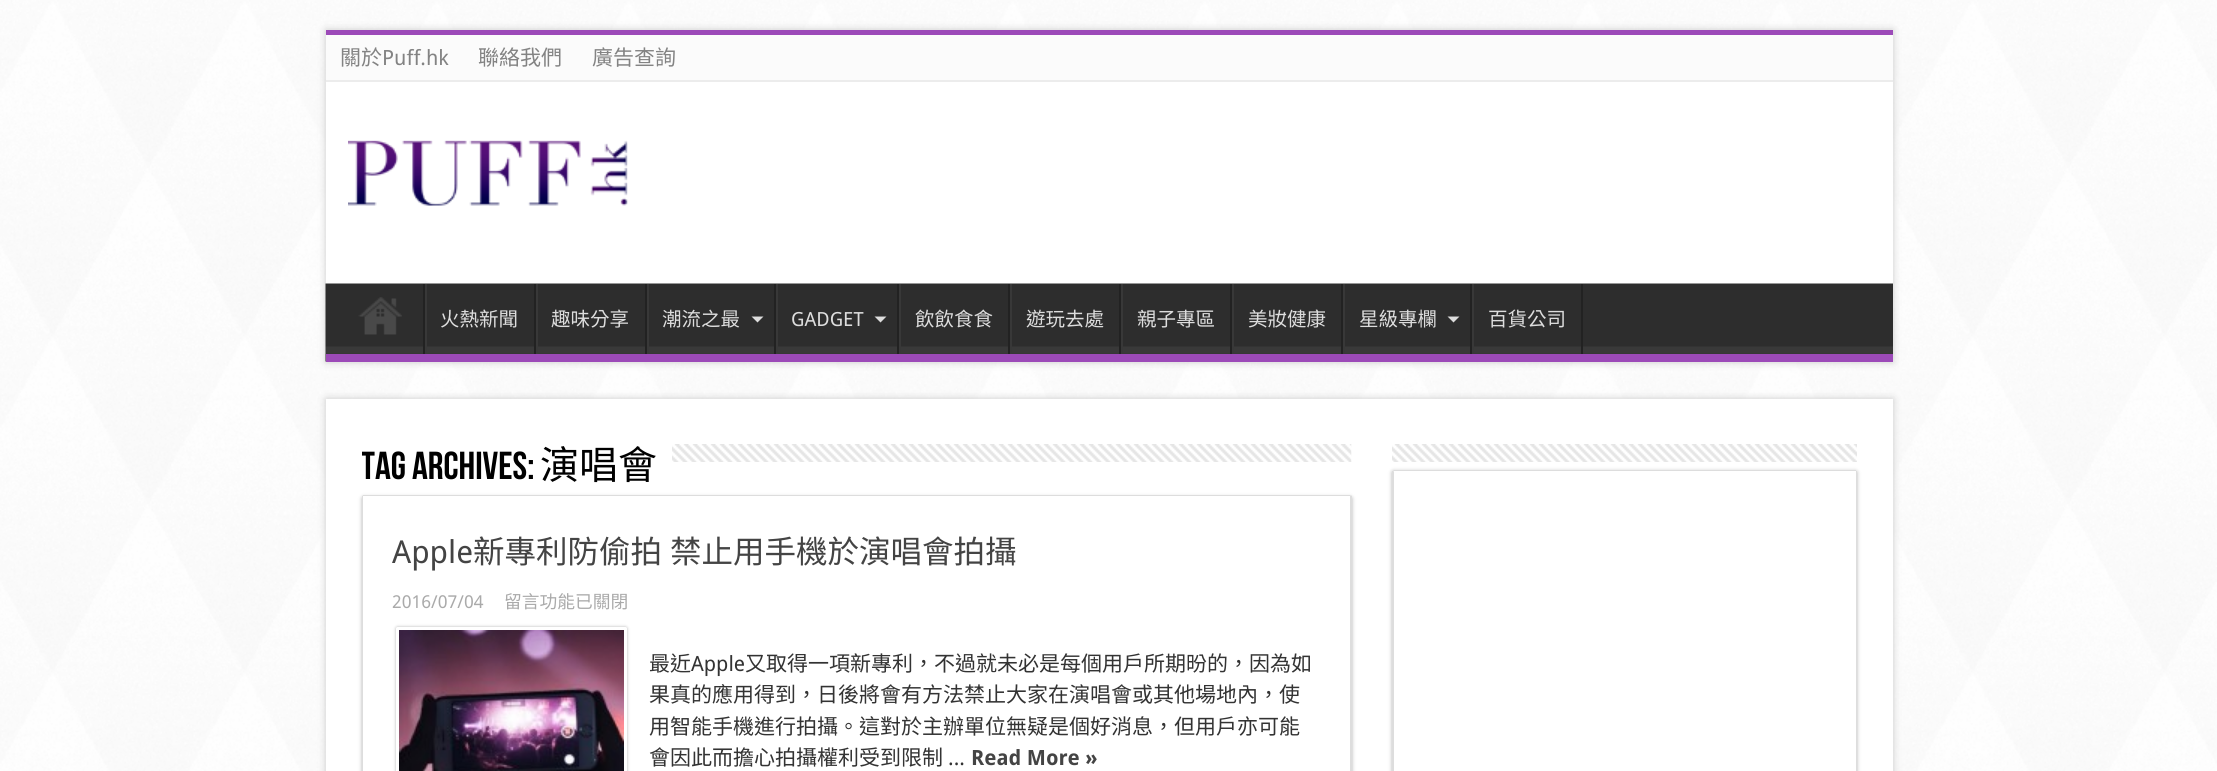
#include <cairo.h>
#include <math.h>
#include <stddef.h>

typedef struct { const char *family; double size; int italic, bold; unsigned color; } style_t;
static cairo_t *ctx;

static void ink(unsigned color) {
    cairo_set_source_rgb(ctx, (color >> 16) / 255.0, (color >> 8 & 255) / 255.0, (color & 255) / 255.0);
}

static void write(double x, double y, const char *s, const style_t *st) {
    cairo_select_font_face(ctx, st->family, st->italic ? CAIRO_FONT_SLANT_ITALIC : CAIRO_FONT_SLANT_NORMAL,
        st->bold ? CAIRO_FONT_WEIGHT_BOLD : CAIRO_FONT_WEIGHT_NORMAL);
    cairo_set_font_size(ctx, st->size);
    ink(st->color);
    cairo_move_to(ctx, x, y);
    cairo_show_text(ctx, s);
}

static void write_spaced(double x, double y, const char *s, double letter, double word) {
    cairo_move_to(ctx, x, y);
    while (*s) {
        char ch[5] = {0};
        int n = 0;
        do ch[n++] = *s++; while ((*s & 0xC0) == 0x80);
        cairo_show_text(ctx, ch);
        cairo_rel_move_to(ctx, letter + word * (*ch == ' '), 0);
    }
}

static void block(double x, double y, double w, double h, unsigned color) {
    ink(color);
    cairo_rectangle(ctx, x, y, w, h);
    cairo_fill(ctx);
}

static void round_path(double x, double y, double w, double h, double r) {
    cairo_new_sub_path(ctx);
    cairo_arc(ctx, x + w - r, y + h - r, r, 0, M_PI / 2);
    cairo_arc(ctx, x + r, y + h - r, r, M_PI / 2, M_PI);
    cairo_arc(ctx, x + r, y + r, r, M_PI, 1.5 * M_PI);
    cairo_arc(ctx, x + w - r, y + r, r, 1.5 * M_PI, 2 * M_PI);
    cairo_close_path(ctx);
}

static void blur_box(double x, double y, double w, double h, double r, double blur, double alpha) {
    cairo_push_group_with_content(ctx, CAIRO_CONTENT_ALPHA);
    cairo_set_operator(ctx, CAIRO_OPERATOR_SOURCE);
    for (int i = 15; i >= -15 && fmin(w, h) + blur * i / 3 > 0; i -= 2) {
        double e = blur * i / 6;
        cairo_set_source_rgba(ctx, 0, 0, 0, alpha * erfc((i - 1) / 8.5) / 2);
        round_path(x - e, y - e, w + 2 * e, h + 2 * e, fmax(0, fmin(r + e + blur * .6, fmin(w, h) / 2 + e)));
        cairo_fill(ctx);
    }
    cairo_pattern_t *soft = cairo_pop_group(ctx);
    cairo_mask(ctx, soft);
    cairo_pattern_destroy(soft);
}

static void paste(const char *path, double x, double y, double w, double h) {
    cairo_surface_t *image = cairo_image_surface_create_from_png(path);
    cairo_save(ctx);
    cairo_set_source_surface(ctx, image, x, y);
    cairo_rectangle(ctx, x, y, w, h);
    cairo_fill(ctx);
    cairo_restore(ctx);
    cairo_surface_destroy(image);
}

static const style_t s1 = {"Noto Sans CJK TC", 21, 0, 0, 0x838383};
static const style_t s2 = {"Droid Sans", 21, 0, 0, 0x838383};
static const style_t s3 = {"Noto Sans CJK TC", 19.5, 0, 0, 0xdddddd};
static const style_t s4 = {"Droid Sans", 19.5, 0, 0, 0xdddddd};
static const style_t s5 = {"Bebas Neue", 39, 0, 0, 0x000000};
static const style_t s6 = {"Noto Sans CJK TC", 39, 0, 0, 0x000000};
static const style_t s7 = {"Droid Sans", 31.5, 0, 0, 0x444444};
static const style_t s8 = {"Droid Sans", 17.75, 0, 0, 0xaaaaaa};
static const style_t s9 = {"Noto Sans CJK TC", 17.75, 0, 0, 0xaaaaaa};
static const style_t s10 = {"Noto Sans CJK TC", 21, 0, 0, 0x333333};
static const style_t s11 = {"Droid Sans", 21, 0, 0, 0x333333};
static const style_t s12 = {"Droid Sans", 21, 0, 1, 0x444444};

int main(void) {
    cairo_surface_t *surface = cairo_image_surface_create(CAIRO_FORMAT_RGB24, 2217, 771);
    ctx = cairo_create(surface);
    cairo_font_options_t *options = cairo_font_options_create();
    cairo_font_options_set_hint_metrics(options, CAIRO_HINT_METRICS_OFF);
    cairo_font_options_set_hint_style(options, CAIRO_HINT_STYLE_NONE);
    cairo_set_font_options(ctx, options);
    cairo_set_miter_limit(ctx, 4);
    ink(0xffffff);
    cairo_paint(ctx);
    paste("pic1.png", 0, 0, 2217, 771);
    ink(0xcacaca);
    blur_box(326, 30, 1567, 332, 0, 4, 1);
    block(326, 82, 1567, 202, 0xffffff);
    block(326, 35, 1567, 45, 0xfbfbfb);
    block(326, 30, 1567, 5, 0x9c4ab8);
    block(326, 80, 1567, 2, 0xececec);
    write(340, 65, "關於", &s1);
    write(382, 65, "Puff.hk", &s2);
    write(478, 65, "聯絡我們", &s1);
    write(592, 65, "廣告查詢", &s1);
    paste("pic2.png", 348, 140, 280, 66);
    paste("pic3.png", 325, 283, 1568, 79);
    block(326, 354, 1567, 8, 0x9c4ab8);
    paste("pic4.png", 358, 297, 44, 38);
    block(423, 284, 2, 70, 0x222222);
    block(425, 284, 2, 70, 0x383838);
    write(440, 326, "火熱新聞", &s3);
    block(534, 284, 2, 70, 0x222222);
    block(536, 284, 2, 70, 0x383838);
    write(551, 326, "趣味分享", &s3);
    block(645, 284, 2, 70, 0x222222);
    block(647, 284, 2, 70, 0x383838);
    write(662, 326, "潮流之最", &s3);
    cairo_new_path(ctx);
    cairo_move_to(ctx, 751.5, 316.5);
    cairo_line_to(ctx, 763.5, 316.5);
    cairo_line_to(ctx, 757.5, 322.5);
    cairo_close_path(ctx);
    cairo_fill(ctx);
    block(774, 284, 2, 70, 0x222222);
    block(776, 284, 2, 70, 0x383838);
    write(791, 326, "GADGET", &s4);
    cairo_new_path(ctx);
    cairo_move_to(ctx, 874.5, 316.5);
    cairo_line_to(ctx, 886.5, 316.5);
    cairo_line_to(ctx, 880.5, 322.5);
    cairo_close_path(ctx);
    cairo_fill(ctx);
    block(897, 284, 2, 70, 0x222222);
    block(899, 284, 2, 70, 0x383838);
    write(915, 326, "飲飲食食", &s3);
    block(1008, 284, 2, 70, 0x222222);
    block(1010, 284, 2, 70, 0x383838);
    write(1026, 326, "遊玩去處", &s3);
    block(1119, 284, 2, 70, 0x222222);
    block(1121, 284, 2, 70, 0x383838);
    write(1137, 326, "親子專區", &s3);
    block(1230, 284, 2, 70, 0x222222);
    block(1232, 284, 2, 70, 0x383838);
    write(1248, 326, "美妝健康", &s3);
    block(1341, 284, 2, 70, 0x222222);
    block(1343, 284, 2, 70, 0x383838);
    write(1359, 326, "星級專欄", &s3);
    cairo_new_path(ctx);
    cairo_move_to(ctx, 1447.5, 316.5);
    cairo_line_to(ctx, 1459.5, 316.5);
    cairo_line_to(ctx, 1453.5, 322.5);
    cairo_close_path(ctx);
    cairo_fill(ctx);
    block(1470, 284, 2, 70, 0x222222);
    block(1472, 284, 2, 70, 0x383838);
    write(1488, 326, "百貨公司", &s3);
    block(1581, 284, 2, 70, 0x222222);
    ink(0xcacaca);
    blur_box(326, 399, 1567, 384, 0, 4, 1);
    block(326, 399, 1567, 372, 0xffffff);
    cairo_save(ctx);
    cairo_rectangle(ctx, 362, 429, 990, 66);
    cairo_clip(ctx);
    write(361, 479, "Tag Archives:", &s5);
    cairo_restore(ctx);
    write(540, 479, "演唱會", &s6);
    paste("pic5.png", 672, 444, 680, 18);
    cairo_save(ctx);
    cairo_set_fill_rule(ctx, CAIRO_FILL_RULE_EVEN_ODD);
    cairo_new_path(ctx);
    cairo_move_to(ctx, 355, 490);
    cairo_line_to(ctx, 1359, 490);
    cairo_line_to(ctx, 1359, 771);
    cairo_line_to(ctx, 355, 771);
    cairo_close_path(ctx);
    cairo_move_to(ctx, 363.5, 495);
    cairo_line_to(ctx, 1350.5, 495);
    cairo_curve_to(ctx, 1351.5, 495, 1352, 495.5, 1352, 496.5);
    cairo_line_to(ctx, 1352, 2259.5);
    cairo_curve_to(ctx, 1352, 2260.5, 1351.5, 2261, 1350.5, 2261);
    cairo_line_to(ctx, 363.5, 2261);
    cairo_curve_to(ctx, 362.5, 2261, 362, 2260.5, 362, 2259.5);
    cairo_line_to(ctx, 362, 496.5);
    cairo_curve_to(ctx, 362, 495.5, 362.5, 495, 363.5, 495);
    cairo_close_path(ctx);
    cairo_clip(ctx);
    ink(0xb5b5b5);
    blur_box(362, 497, 990, 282, 1.5, 2, 1);
    cairo_restore(ctx);
    ink(0xdddddd);
    cairo_new_path(ctx);
    cairo_move_to(ctx, 363, 495);
    cairo_line_to(ctx, 362, 496);
    cairo_line_to(ctx, 363, 496);
    cairo_line_to(ctx, 1350, 496);
    cairo_line_to(ctx, 1351, 495);
    cairo_line_to(ctx, 1350, 495);
    cairo_close_path(ctx);
    cairo_fill(ctx);
    cairo_new_path(ctx);
    cairo_move_to(ctx, 1352, 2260);
    cairo_line_to(ctx, 1350, 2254);
    cairo_line_to(ctx, 1350, 496);
    cairo_line_to(ctx, 1351, 495);
    cairo_line_to(ctx, 1352, 496);
    cairo_close_path(ctx);
    cairo_fill(ctx);
    cairo_new_path(ctx);
    cairo_move_to(ctx, 362, 496);
    cairo_line_to(ctx, 362, 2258);
    cairo_line_to(ctx, 363, 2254);
    cairo_line_to(ctx, 363, 496);
    cairo_close_path(ctx);
    cairo_fill(ctx);
    write(392, 563, "Apple", &s7);
    cairo_select_font_face(ctx, "Noto Sans CJK TC", CAIRO_FONT_SLANT_NORMAL, CAIRO_FONT_WEIGHT_NORMAL);
    write_spaced(473, 563, "新專利防偷拍 禁止用手機於演唱會拍攝", 0, 1);
    write(392, 608, "2016/07/04", &s8);
    write(504, 608, "留言功能已關閉", &s9);
    ink(0xb5b5b5);
    blur_box(396, 627, 231, 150, 1.5, 1.5, 1);
    ink(0xffffff);
    round_path(396, 627, 231, 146, 1.5);
    cairo_fill(ctx);
    paste("pic6.png", 399, 630, 225, 141);
    write(649, 671, "最近", &s10);
    write(691, 671, "Apple", &s11);
    write(745, 671, "又取得一項新專利，不過就未必是每個用戶所期昐的，因為如", &s10);
    write(649, 702, "果真的應用得到，日後將會有方法禁止大家在演唱會或其他場地內，使", &s10);
    write(649, 734, "用智能手機進行拍攝。這對於主辦單位無疑是個好消息，但用戶亦可能", &s10);
    write(649, 765, "會因此而擔心拍攝權利受到限制", &s10);
    write(948, 765, "...", &s11);
    write(971, 765, "Read More »", &s12);
    paste("pic7.png", 1392, 444, 465, 18);
    cairo_save(ctx);
    cairo_set_fill_rule(ctx, CAIRO_FILL_RULE_EVEN_ODD);
    cairo_new_path(ctx);
    cairo_move_to(ctx, 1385, 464);
    cairo_line_to(ctx, 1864, 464);
    cairo_line_to(ctx, 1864, 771);
    cairo_line_to(ctx, 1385, 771);
    cairo_close_path(ctx);
    cairo_move_to(ctx, 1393.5, 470);
    cairo_line_to(ctx, 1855.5, 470);
    cairo_curve_to(ctx, 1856.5, 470, 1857, 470.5, 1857, 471.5);
    cairo_line_to(ctx, 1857, 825.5);
    cairo_curve_to(ctx, 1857, 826.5, 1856.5, 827, 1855.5, 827);
    cairo_line_to(ctx, 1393.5, 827);
    cairo_curve_to(ctx, 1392.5, 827, 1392, 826.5, 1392, 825.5);
    cairo_line_to(ctx, 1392, 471.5);
    cairo_curve_to(ctx, 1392, 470.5, 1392.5, 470, 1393.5, 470);
    cairo_close_path(ctx);
    cairo_clip(ctx);
    ink(0xb5b5b5);
    blur_box(1392, 471, 465, 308, 1.5, 2, 1);
    cairo_restore(ctx);
    ink(0xdddddd);
    cairo_new_path(ctx);
    cairo_move_to(ctx, 1394, 470);
    cairo_line_to(ctx, 1393, 470);
    cairo_line_to(ctx, 1394, 472);
    cairo_line_to(ctx, 1394, 471);
    cairo_line_to(ctx, 1856, 471);
    cairo_line_to(ctx, 1856, 470);
    cairo_close_path(ctx);
    cairo_fill(ctx);
    cairo_new_path(ctx);
    cairo_move_to(ctx, 1856, 470);
    cairo_line_to(ctx, 1857, 471);
    cairo_line_to(ctx, 1857, 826);
    cairo_line_to(ctx, 1855, 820);
    cairo_line_to(ctx, 1856, 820);
    cairo_line_to(ctx, 1856, 471);
    cairo_close_path(ctx);
    cairo_fill(ctx);
    cairo_new_path(ctx);
    cairo_move_to(ctx, 1392, 471);
    cairo_line_to(ctx, 1392, 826);
    cairo_line_to(ctx, 1394, 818);
    cairo_line_to(ctx, 1394, 472);
    cairo_line_to(ctx, 1393, 470);
    cairo_close_path(ctx);
    cairo_fill(ctx);
    cairo_surface_write_to_png(surface, "screenshot.png");
    cairo_font_options_destroy(options);
    cairo_destroy(ctx);
    cairo_surface_destroy(surface);
    return 0;
}
